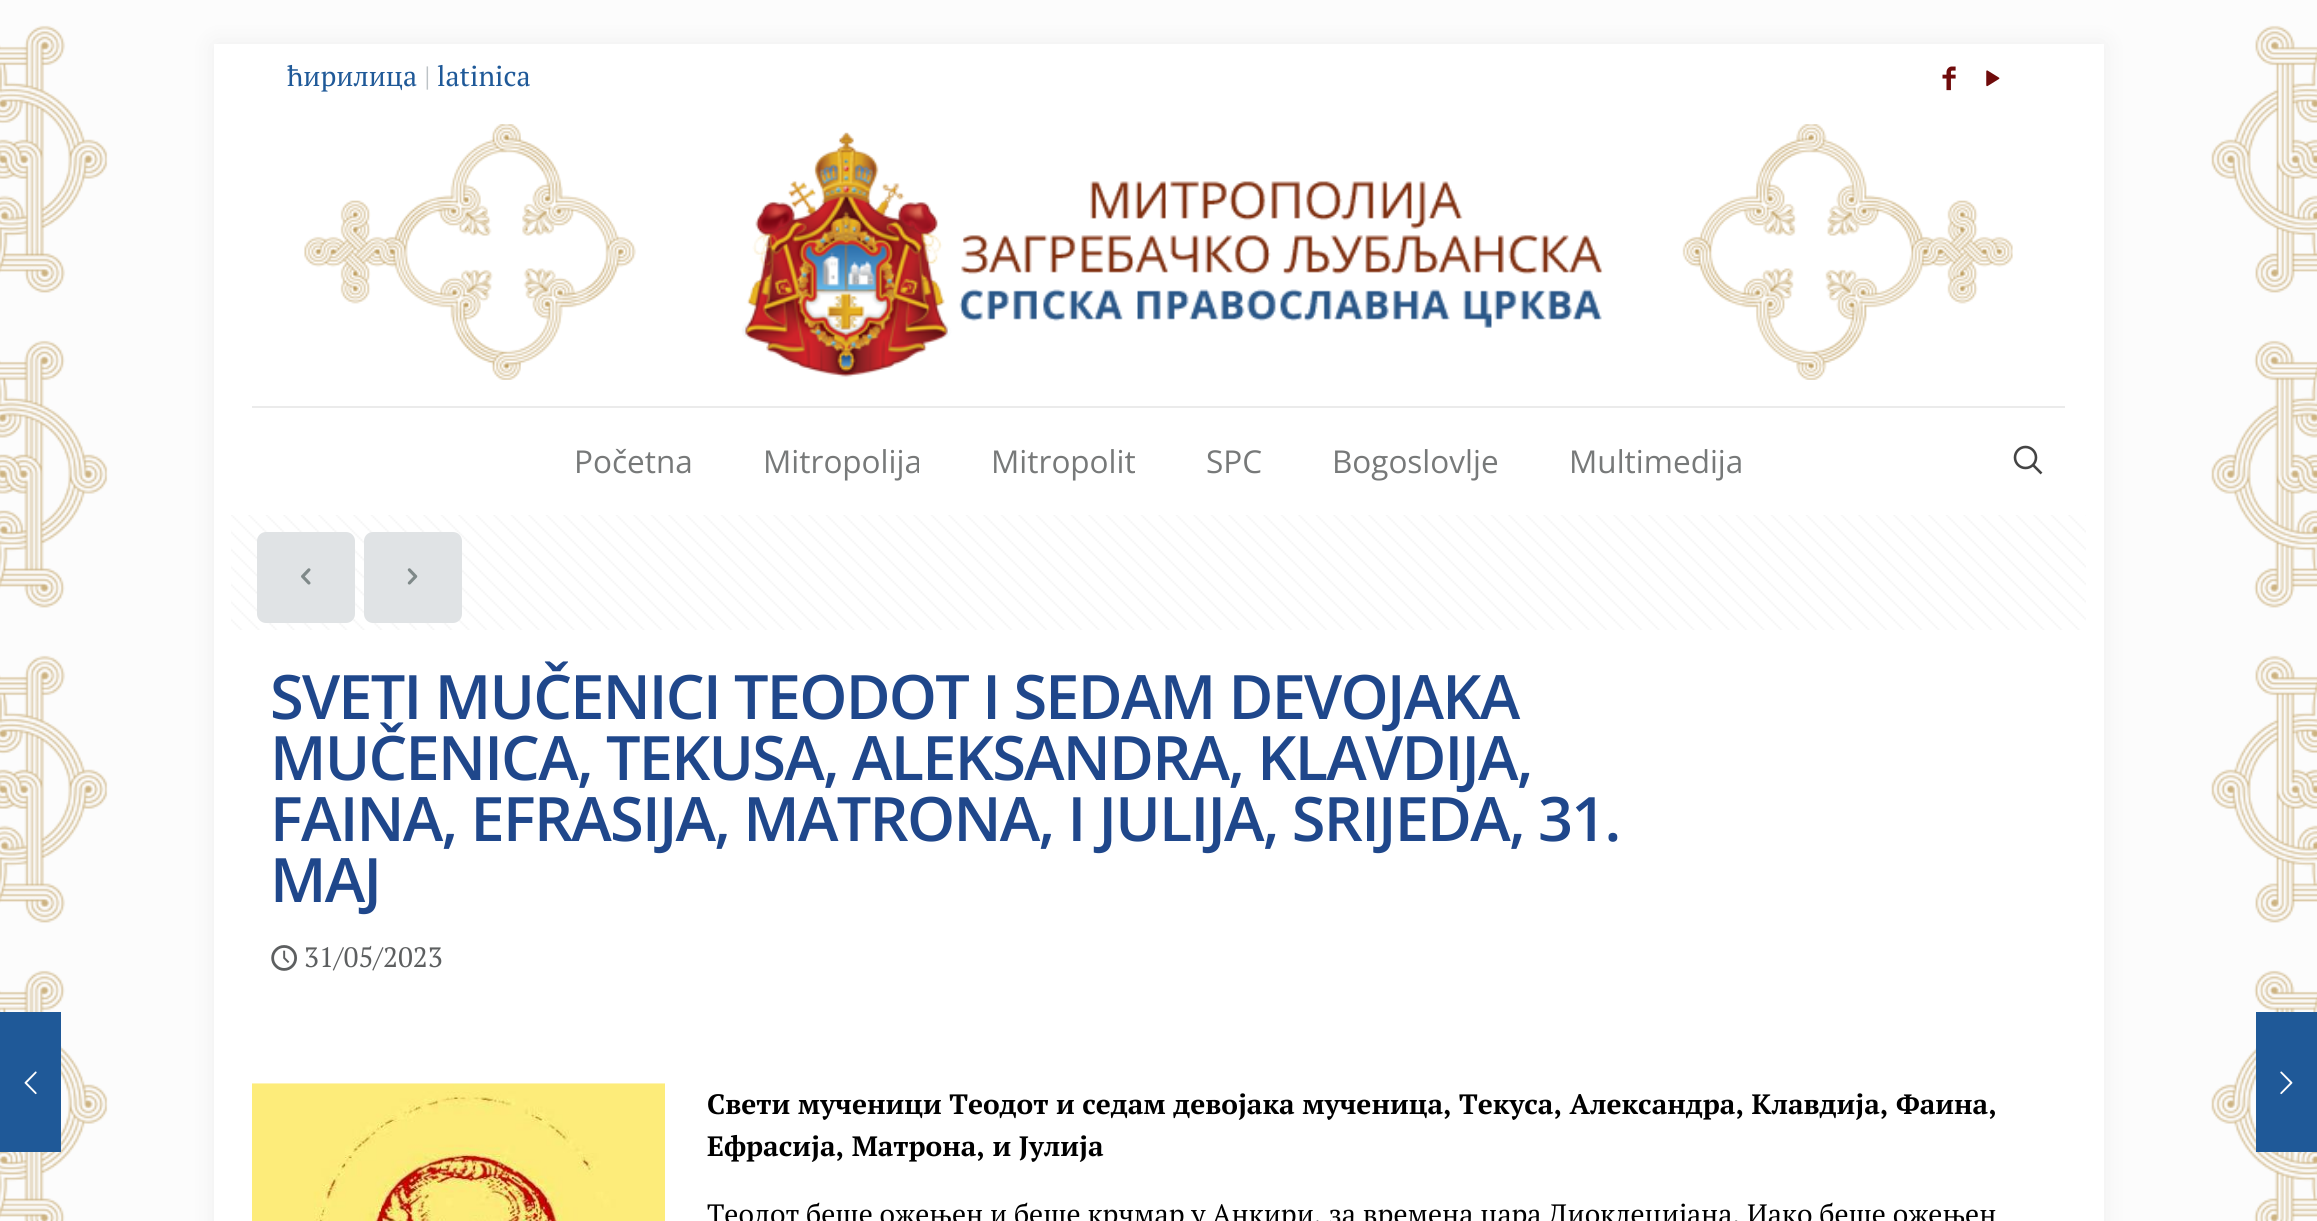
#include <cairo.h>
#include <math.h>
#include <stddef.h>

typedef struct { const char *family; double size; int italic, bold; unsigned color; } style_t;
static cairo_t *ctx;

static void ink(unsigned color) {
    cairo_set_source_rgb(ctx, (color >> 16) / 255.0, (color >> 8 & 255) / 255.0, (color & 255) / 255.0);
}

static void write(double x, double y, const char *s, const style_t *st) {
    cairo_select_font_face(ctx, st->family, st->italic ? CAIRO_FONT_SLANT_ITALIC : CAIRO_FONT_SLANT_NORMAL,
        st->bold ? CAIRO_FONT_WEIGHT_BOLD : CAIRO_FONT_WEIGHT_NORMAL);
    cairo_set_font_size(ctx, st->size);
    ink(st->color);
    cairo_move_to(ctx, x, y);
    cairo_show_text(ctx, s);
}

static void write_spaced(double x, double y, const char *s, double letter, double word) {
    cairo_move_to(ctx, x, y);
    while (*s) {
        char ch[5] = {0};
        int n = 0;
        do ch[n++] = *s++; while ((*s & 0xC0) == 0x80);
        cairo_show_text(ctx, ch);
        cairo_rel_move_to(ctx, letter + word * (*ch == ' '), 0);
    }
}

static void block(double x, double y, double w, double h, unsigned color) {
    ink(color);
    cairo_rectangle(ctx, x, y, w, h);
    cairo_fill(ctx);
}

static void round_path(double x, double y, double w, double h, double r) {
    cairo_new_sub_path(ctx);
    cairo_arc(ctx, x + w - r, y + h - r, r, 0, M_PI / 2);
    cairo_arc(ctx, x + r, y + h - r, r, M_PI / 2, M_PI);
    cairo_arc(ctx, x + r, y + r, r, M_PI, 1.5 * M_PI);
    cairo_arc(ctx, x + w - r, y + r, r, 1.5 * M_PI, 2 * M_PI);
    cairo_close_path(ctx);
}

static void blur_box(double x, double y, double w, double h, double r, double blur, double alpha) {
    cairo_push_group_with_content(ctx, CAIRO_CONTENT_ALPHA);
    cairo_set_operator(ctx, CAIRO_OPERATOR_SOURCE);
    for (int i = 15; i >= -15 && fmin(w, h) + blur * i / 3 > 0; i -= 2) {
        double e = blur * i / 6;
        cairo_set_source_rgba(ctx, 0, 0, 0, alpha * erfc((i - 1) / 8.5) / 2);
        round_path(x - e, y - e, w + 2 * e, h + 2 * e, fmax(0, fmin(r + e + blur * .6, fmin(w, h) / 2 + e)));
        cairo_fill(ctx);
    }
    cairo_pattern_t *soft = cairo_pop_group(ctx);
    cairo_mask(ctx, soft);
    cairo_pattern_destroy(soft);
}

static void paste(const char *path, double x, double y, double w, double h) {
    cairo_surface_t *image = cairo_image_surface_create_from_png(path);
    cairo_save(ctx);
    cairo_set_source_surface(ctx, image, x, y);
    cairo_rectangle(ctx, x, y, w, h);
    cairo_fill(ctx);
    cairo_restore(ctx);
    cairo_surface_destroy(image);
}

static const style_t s1 = {"PT Serif", 28, 0, 0, 0x1f5998};
static const style_t s2 = {"PT Serif", 28, 0, 0, 0xbdc3c6};
static const style_t s3 = {"Open Sans", 31.5, 0, 0, 0x777979};
static const style_t s4 = {"PT Serif", 28, 0, 0, 0x5d5f60};
static const style_t s5 = {"PT Serif", 28, 0, 1, 0x000000};
static const style_t s6 = {"PT Serif", 28, 0, 0, 0x000000};

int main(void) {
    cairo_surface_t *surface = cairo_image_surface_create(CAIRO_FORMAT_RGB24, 2317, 1221);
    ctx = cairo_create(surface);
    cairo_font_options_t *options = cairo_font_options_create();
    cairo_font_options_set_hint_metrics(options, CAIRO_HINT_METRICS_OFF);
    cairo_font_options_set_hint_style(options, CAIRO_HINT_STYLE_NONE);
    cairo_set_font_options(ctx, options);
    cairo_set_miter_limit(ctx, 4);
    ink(0xfcfcfc);
    cairo_paint(ctx);
    paste("pic1.png", 0, 25, 2317, 1196);
    block(0, 1012, 61, 140, 0x1f5998);
    paste("pic2.png", 24, 1071, 13, 24);
    ink(0x000000);
    blur_box(214, 44, 1890, 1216, 0, 13, 0.06);
    block(214, 44, 1890, 1177, 0xffffff);
    write(287, 86, "ћирилица", &s1);
    write(424, 86, "|", &s2);
    write(437, 86, "latinica", &s1);
    paste("pic3.png", 1942, 66, 14, 25);
    paste("pic4.png", 1986, 70, 14, 17);
    block(252, 406, 1813, 2, 0xebebeb);
    paste("pic5.png", 304, 124, 1709, 256);
    write(574, 473, "Početna", &s3);
    write(763, 473, "Mitropolija", &s3);
    write(991, 473, "Mitropolit", &s3);
    write(1206, 473, "SPC", &s3);
    write(1332, 473, "Bogoslovlje", &s3);
    write(1569, 473, "Multimedija", &s3);
    cairo_new_path(ctx);
    cairo_arc(ctx, 2025.5, 457.5, 10.5, 0, 2 * M_PI);
    ink(0x444444);
    cairo_set_line_width(ctx, 2.6);
    cairo_stroke(ctx);
    cairo_new_path(ctx);
    cairo_move_to(ctx, 2033, 465);
    cairo_line_to(ctx, 2041.5, 473.5);
    cairo_stroke(ctx);
    paste("pic6.png", 231, 515, 1855, 115);
    ink(0xe0e3e5);
    round_path(257, 532, 98, 91, 9);
    cairo_fill(ctx);
    paste("pic7.png", 301, 568, 10, 17);
    round_path(364, 532, 98, 91, 9);
    cairo_fill(ctx);
    paste("pic8.png", 407, 568, 11, 17);
    cairo_select_font_face(ctx, "Open Sans SemiBold", CAIRO_FONT_SLANT_NORMAL, CAIRO_FONT_WEIGHT_NORMAL);
    cairo_set_font_size(ctx, 61.25);
    ink(0x1f478b);
    write_spaced(270, 719, "SVETI MUČENICI TEODOT I SEDAM DEVOJAKA", -1.75, 0);
    write_spaced(270, 780, "MUČENICA, TEKUSA, ALEKSANDRA, KLAVDIJA,", -1.75, 0);
    write_spaced(270, 841, "FAINA, EFRASIJA, MATRONA, I JULIJA, SRIJEDA, 31.", -1.75, 0);
    write_spaced(270, 902, "MAJ", -1.75, 0);
    paste("pic9.png", 271, 945, 26, 26);
    write(304, 967, "31/05/2023", &s4);
    paste("pic10.png", 252, 1083, 413, 138);
    write(707, 1114, "Свети мученици Теодот и седам девојака мученица, Текуса, Александра, Клавдија, Фаина,", &s5);
    write(707, 1156, "Ефрасија, Матрона, и Јулија", &s5);
    write(707, 1224, "Теодот беше ожењен и беше крчмар у Анкири, за времена цара Диоклецијана. Иако беше ожењен", &s6);
    block(2256, 1012, 61, 140, 0x1f5998);
    paste("pic11.png", 2280, 1071, 13, 24);
    cairo_surface_write_to_png(surface, "screenshot.png");
    cairo_font_options_destroy(options);
    cairo_destroy(ctx);
    cairo_surface_destroy(surface);
    return 0;
}
